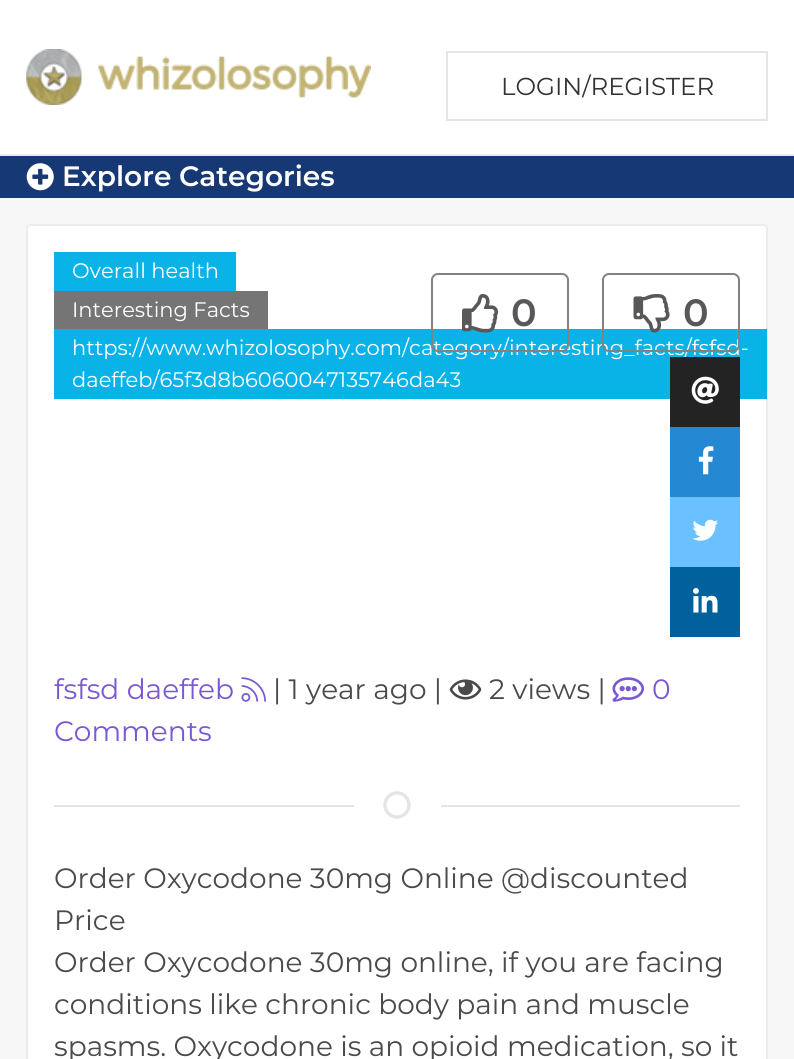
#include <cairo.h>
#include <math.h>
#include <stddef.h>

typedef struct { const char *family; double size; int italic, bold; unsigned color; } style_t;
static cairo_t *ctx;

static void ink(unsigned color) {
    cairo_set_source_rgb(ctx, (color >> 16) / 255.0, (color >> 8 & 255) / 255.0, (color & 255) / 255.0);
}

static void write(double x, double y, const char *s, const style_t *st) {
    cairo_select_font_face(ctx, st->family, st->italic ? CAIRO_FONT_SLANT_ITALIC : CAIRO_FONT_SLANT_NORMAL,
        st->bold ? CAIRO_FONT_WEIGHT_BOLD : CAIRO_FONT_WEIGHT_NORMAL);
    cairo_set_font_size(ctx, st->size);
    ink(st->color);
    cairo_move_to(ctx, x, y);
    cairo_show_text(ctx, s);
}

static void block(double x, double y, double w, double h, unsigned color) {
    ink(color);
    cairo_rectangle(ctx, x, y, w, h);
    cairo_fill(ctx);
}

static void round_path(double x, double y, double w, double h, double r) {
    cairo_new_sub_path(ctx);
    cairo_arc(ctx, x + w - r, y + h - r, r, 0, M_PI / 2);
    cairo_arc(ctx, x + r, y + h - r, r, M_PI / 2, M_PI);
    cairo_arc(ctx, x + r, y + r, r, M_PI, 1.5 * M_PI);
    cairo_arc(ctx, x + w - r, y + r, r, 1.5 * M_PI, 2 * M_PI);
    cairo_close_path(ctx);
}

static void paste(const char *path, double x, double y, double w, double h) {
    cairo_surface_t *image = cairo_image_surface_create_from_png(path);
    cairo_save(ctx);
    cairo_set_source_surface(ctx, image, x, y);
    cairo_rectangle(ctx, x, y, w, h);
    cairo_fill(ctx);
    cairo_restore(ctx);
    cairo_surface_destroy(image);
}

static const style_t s1 = {"Montserrat", 24.5, 0, 0, 0x333333};
static const style_t s2 = {"Montserrat SemiBold", 28, 0, 0, 0xffffff};
static const style_t s3 = {"Montserrat", 21, 0, 0, 0xffffff};
static const style_t s4 = {"Montserrat SemiBold", 38, 0, 0, 0x585858};
static const style_t s5 = {"Montserrat", 28, 0, 0, 0x7957d5};
static const style_t s6 = {"Montserrat", 28, 0, 0, 0x4a4a4a};

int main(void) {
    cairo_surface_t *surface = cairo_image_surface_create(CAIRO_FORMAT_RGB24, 794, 1059);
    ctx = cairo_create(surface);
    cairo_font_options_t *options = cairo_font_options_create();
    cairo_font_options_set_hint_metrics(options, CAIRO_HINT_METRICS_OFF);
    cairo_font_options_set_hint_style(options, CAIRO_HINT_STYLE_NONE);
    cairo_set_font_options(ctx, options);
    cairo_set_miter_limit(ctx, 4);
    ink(0xffffff);
    cairo_paint(ctx);
    block(0, 154, 794, 2, 0xececec);
    paste("pic1.png", 26, 49, 345, 56);
    cairo_rectangle(ctx, 447, 52, 320, 68);
    ink(0xe5e5e5);
    cairo_stroke(ctx);
    write(501, 95, "LOGIN/REGISTER", &s1);
    block(0, 156, 794, 42, 0x163874);
    paste("pic2.png", 26, 163, 28, 28);
    write(62, 186, "Explore Categories", &s2);
    block(0, 198, 794, 861, 0xf7f7f7);
    ink(0xffffff);
    round_path(27, 225, 740, 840, 4);
    cairo_fill_preserve(ctx);
    ink(0xececec);
    cairo_stroke(ctx);
    block(54, 252, 182, 39, 0x09b3e8);
    write(72, 278, "Overall health", &s3);
    block(54, 291, 214, 38, 0x757575);
    write(72, 317, "Interesting Facts", &s3);
    block(54, 329, 713, 70, 0x09b3e8);
    write(72, 355, "https://www.whizolosophy.com/category/interesting_facts/fsfsd-", &s3);
    write(72, 387, "daeffeb/65f3d8b6060047135746da43", &s3);
    round_path(432, 274, 136, 77, 6);
    ink(0x828282);
    cairo_stroke(ctx);
    paste("pic3.png", 462, 294, 37, 39);
    write(511, 326, "0", &s4);
    round_path(603, 274, 136, 77, 6);
    ink(0x828282);
    cairo_stroke(ctx);
    paste("pic4.png", 633, 294, 37, 39);
    write(683, 326, "0", &s4);
    block(670, 357, 70, 70, 0x232323);
    paste("pic5.png", 691, 376, 28, 28);
    block(670, 427, 70, 70, 0x2488d2);
    paste("pic6.png", 698, 446, 16, 29);
    block(670, 497, 70, 70, 0x6bc0ff);
    paste("pic7.png", 692, 519, 26, 22);
    block(670, 567, 70, 70, 0x00619c);
    paste("pic8.png", 693, 588, 25, 25);
    write(54, 699, "fsfsd daeffeb", &s5);
    paste("pic9.png", 241, 677, 25, 25);
    write(273, 699, "| 1 year ago |", &s6);
    paste("pic10.png", 449, 679, 33, 21);
    write(489, 699, "2 views |", &s6);
    paste("pic11.png", 612, 677, 32, 25);
    write(652, 699, "0", &s5);
    write(54, 741, "Comments", &s5);
    cairo_new_path(ctx);
    cairo_arc(ctx, 397, 805, 12, 0, 2 * M_PI);
    ink(0xe5e5e5);
    cairo_set_line_width(ctx, 3.5);
    cairo_stroke(ctx);
    block(54, 805, 300, 2, 0xe5e5e5);
    block(441, 805, 299, 2, 0xe5e5e5);
    write(54, 888, "Order Oxycodone 30mg Online @discounted", &s6);
    write(54, 930, "Price", &s6);
    write(54, 972, "Order Oxycodone 30mg online, if you are facing", &s6);
    write(54, 1014, "conditions like chronic body pain and muscle", &s6);
    write(54, 1056, "spasms. Oxycodone is an opioid medication, so it", &s6);
    cairo_surface_write_to_png(surface, "screenshot.png");
    cairo_font_options_destroy(options);
    cairo_destroy(ctx);
    cairo_surface_destroy(surface);
    return 0;
}
